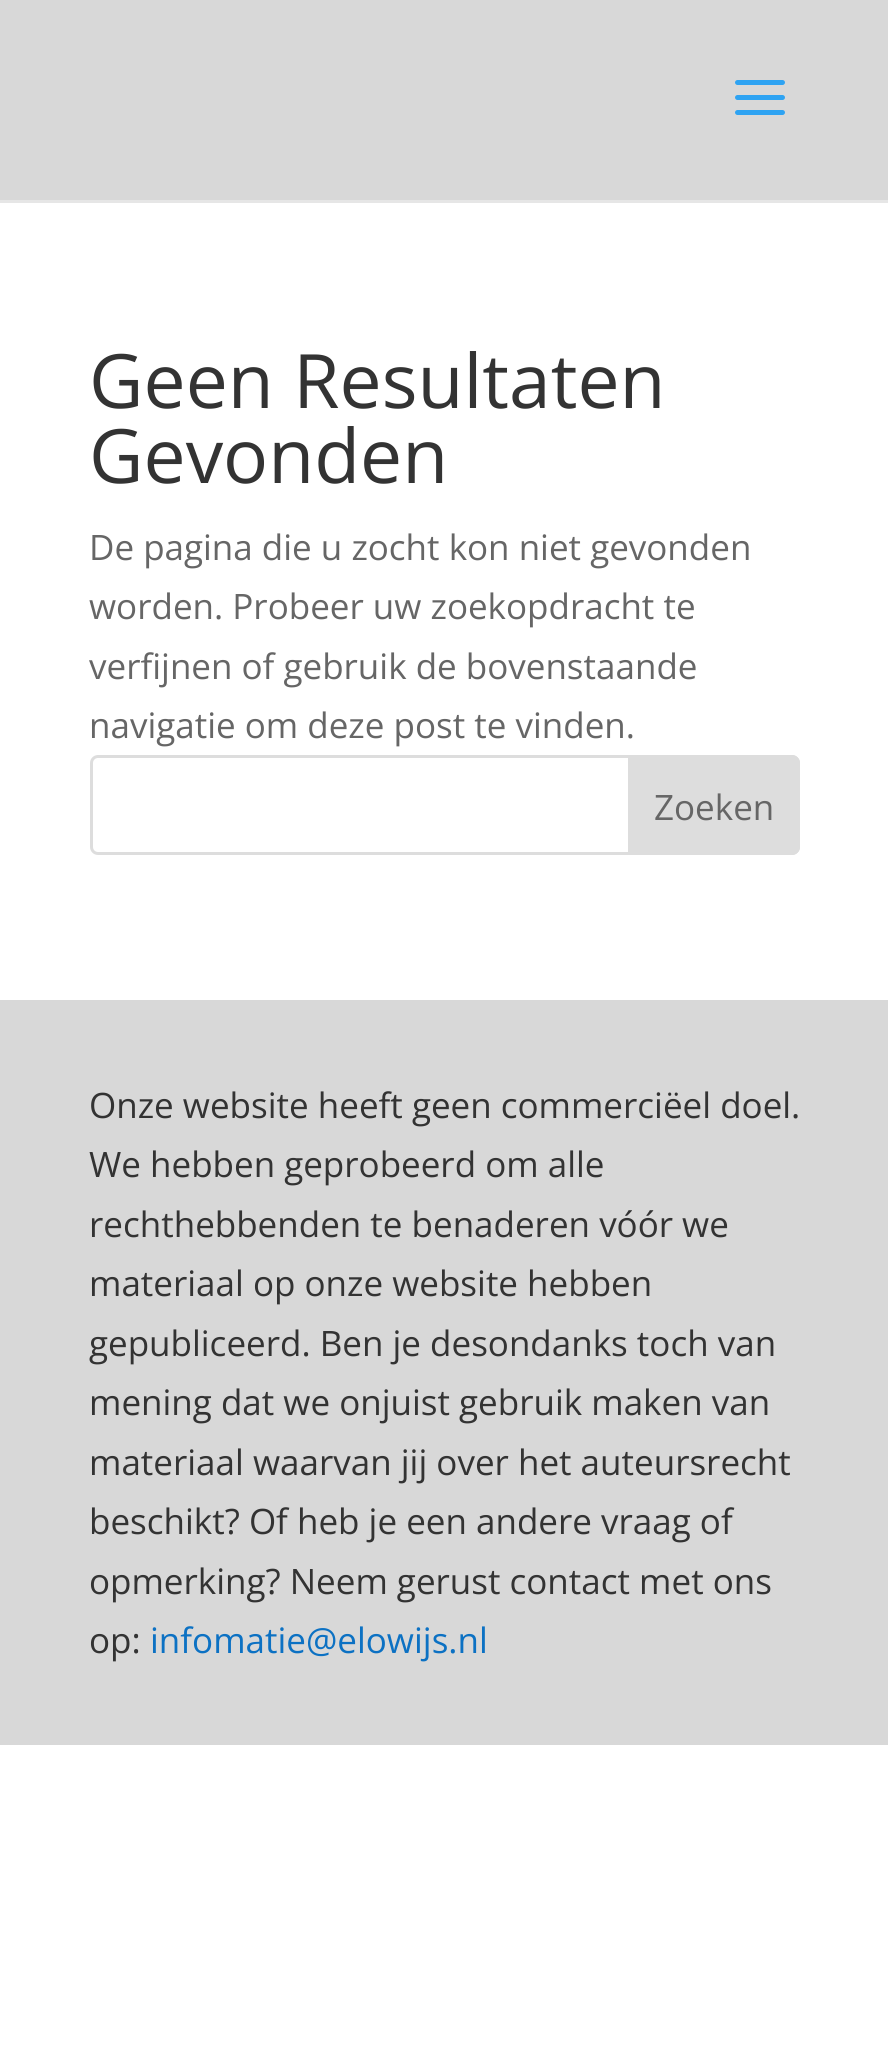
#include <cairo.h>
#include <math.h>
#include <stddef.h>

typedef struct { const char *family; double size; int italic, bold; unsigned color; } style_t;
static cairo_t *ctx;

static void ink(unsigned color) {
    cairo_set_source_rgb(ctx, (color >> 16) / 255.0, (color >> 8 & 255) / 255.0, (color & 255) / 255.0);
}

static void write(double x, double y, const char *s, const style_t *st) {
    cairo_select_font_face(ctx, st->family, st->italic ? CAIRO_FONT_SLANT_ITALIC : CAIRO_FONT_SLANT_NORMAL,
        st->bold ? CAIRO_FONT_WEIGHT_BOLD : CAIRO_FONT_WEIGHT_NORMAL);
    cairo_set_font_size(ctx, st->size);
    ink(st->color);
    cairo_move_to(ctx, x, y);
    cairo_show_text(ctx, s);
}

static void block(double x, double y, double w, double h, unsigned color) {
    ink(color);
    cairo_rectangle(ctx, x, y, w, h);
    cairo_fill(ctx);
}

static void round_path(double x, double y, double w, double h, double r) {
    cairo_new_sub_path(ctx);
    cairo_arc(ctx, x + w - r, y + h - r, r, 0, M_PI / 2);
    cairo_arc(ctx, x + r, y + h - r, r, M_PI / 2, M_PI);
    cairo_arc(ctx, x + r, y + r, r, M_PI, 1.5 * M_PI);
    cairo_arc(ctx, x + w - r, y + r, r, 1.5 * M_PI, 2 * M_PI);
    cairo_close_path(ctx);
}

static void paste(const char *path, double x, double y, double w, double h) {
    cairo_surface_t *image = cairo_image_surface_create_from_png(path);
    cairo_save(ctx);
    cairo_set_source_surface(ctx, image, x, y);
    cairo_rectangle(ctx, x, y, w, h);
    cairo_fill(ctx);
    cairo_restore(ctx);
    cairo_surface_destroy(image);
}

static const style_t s1 = {"Open Sans", 75, 0, 0, 0x333333};
static const style_t s2 = {"Open Sans", 35, 0, 0, 0x666666};
static const style_t s3 = {"Open Sans", 35, 0, 0, 0x333333};
static const style_t s4 = {"Open Sans", 35, 0, 0, 0x0c71c3};

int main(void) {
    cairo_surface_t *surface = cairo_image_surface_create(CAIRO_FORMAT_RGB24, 888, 2047);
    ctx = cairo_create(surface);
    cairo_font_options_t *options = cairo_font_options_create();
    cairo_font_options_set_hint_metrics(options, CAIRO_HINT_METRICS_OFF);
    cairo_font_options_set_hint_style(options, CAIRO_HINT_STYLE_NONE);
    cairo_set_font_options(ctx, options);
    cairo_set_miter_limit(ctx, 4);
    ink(0xffffff);
    cairo_paint(ctx);
    block(0, 200, 888, 3, 0xe6e6e6);
    block(0, 0, 888, 200, 0xd8d8d8);
    paste("pic1.png", 735, 80, 50, 35);
    write(89, 408, "Geen Resultaten", &s1);
    write(89, 483, "Gevonden", &s1);
    write(89, 560, "De pagina die u zocht kon niet gevonden", &s2);
    write(89, 619, "worden. Probeer uw zoekopdracht te", &s2);
    write(89, 679, "verfijnen of gebruik de bovenstaande", &s2);
    write(89, 738, "navigatie om deze post te vinden.", &s2);
    round_path(91.5, 756.5, 707, 97, 6.5);
    ink(0xdddddd);
    cairo_set_line_width(ctx, 3);
    cairo_stroke(ctx);
    cairo_new_path(ctx);
    cairo_move_to(ctx, 629.5, 756.5);
    cairo_line_to(ctx, 792, 756.5);
    cairo_curve_to(ctx, 795.5, 756.5, 798.5, 759.5, 798.5, 763);
    cairo_line_to(ctx, 798.5, 847);
    cairo_curve_to(ctx, 798.5, 850.5, 795.5, 853.5, 792, 853.5);
    cairo_line_to(ctx, 629.5, 853.5);
    cairo_close_path(ctx);
    cairo_fill_preserve(ctx);
    cairo_stroke(ctx);
    write(654, 820, "Zoeken", &s2);
    block(0, 1000, 888, 745, 0xd8d8d8);
    write(89, 1118, "Onze website heeft geen commerciëel doel.", &s3);
    write(89, 1177, "We hebben geprobeerd om alle", &s3);
    write(89, 1237, "rechthebbenden te benaderen vóór we", &s3);
    write(89, 1296, "materiaal op onze website hebben", &s3);
    write(89, 1356, "gepubliceerd. Ben je desondanks toch van", &s3);
    write(89, 1415, "mening dat we onjuist gebruik maken van", &s3);
    write(89, 1475, "materiaal waarvan jij over het auteursrecht", &s3);
    write(89, 1534, "beschikt? Of heb je een andere vraag of", &s3);
    write(89, 1594, "opmerking? Neem gerust contact met ons", &s3);
    write(89, 1653, "op:", &s3);
    write(150, 1653, "infomatie@elowijs.nl", &s4);
    cairo_surface_write_to_png(surface, "screenshot.png");
    cairo_font_options_destroy(options);
    cairo_destroy(ctx);
    cairo_surface_destroy(surface);
    return 0;
}
